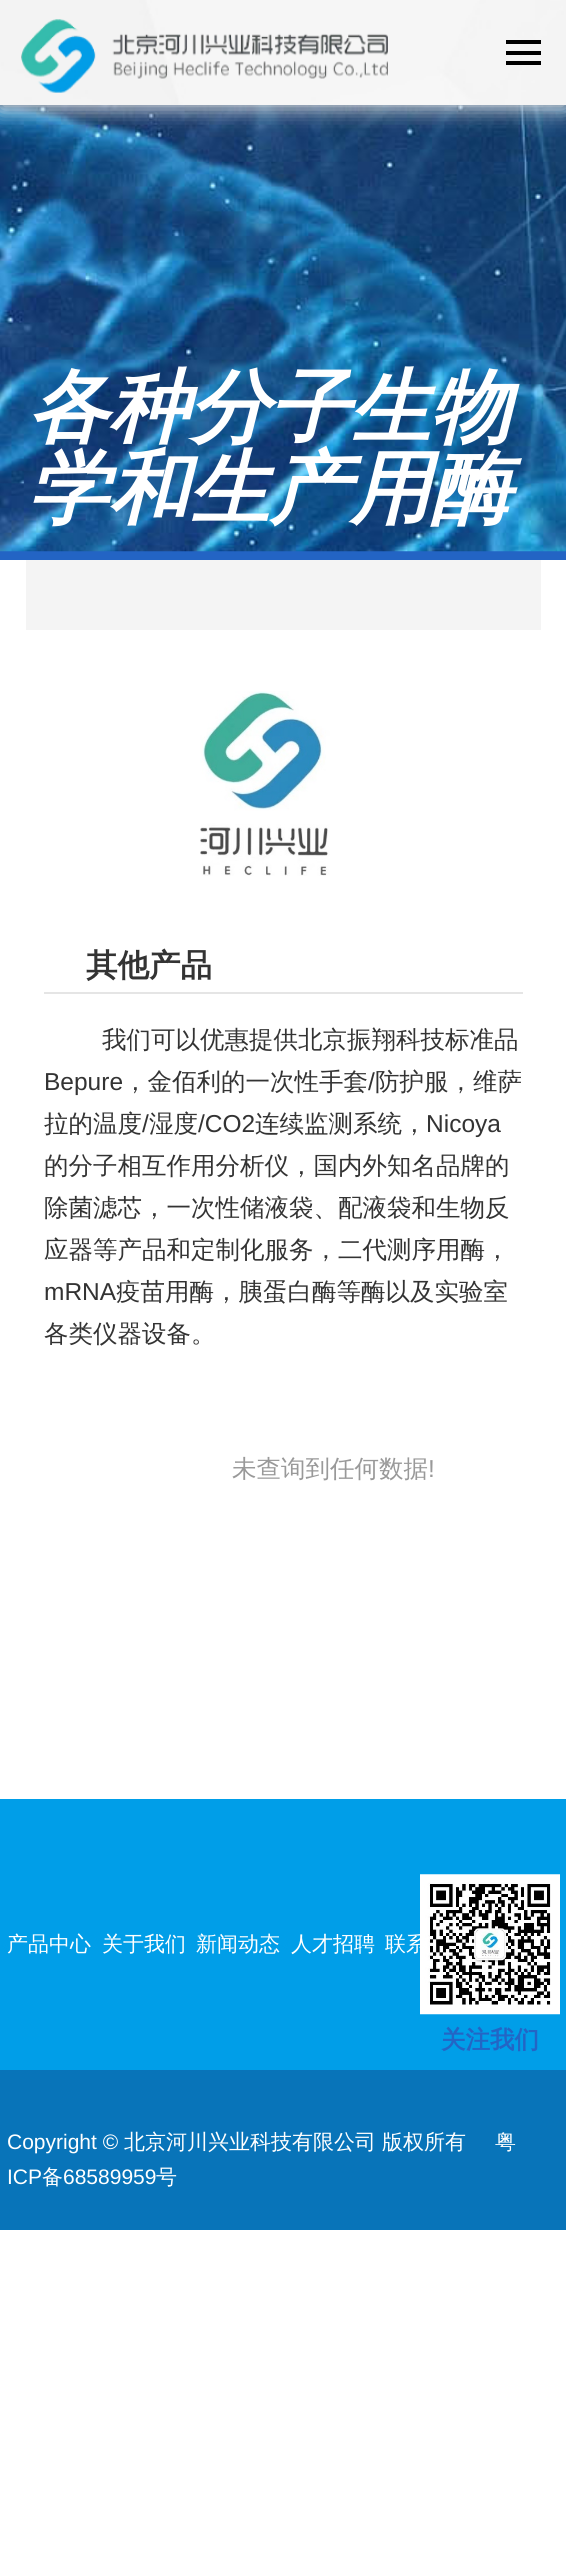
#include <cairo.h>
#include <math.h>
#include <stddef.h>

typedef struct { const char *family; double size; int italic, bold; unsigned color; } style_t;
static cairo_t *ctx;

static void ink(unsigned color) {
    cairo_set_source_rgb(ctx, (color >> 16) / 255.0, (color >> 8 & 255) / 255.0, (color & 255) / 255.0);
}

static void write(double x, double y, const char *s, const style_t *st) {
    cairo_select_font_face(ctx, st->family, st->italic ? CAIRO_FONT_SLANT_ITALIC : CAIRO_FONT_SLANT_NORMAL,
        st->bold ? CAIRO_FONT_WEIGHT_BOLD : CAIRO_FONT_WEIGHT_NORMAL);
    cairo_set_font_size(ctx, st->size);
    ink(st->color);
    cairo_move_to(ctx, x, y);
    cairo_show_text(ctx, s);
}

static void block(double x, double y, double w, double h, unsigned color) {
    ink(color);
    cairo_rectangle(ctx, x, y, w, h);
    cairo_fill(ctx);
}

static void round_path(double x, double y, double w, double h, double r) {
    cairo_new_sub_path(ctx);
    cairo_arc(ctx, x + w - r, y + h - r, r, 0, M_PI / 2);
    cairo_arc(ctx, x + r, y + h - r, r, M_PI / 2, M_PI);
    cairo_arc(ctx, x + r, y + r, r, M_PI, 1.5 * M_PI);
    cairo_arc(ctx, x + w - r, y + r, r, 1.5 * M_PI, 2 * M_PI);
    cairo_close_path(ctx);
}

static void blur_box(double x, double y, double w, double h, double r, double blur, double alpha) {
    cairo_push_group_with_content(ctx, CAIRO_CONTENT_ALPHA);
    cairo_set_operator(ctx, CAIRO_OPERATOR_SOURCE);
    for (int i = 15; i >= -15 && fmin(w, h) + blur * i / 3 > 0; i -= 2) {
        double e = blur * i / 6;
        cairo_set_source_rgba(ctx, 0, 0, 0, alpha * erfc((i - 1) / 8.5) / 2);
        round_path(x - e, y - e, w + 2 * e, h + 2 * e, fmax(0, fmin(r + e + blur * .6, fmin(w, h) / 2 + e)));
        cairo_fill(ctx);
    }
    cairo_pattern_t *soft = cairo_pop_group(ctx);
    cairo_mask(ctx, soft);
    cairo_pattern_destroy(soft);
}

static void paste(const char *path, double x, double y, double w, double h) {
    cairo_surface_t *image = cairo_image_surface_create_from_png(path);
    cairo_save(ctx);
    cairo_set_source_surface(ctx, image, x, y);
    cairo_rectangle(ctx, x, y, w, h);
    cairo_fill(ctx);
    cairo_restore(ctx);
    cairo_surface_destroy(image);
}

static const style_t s1 = {"WenQuanYi Zen Hei", 80.5, 1, 1, 0xffffff};
static const style_t s2 = {"WenQuanYi Zen Hei", 31.5, 0, 1, 0x333333};
static const style_t s3 = {"WenQuanYi Zen Hei Medium", 24.5, 0, 0, 0x333333};
static const style_t s4 = {"Liberation Sans", 24.5, 0, 0, 0x333333};
static const style_t s5 = {"WenQuanYi Zen Hei Medium", 24.5, 0, 0, 0x999999};
static const style_t s6 = {"Liberation Sans", 24.5, 0, 0, 0x999999};
static const style_t s7 = {"WenQuanYi Zen Hei Medium", 21, 0, 0, 0xffffff};
static const style_t s8 = {"WenQuanYi Zen Hei", 24.5, 0, 1, 0x2365c5};
static const style_t s9 = {"Liberation Sans", 21, 0, 0, 0xffffff};

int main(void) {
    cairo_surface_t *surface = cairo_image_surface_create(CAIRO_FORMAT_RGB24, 566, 2551);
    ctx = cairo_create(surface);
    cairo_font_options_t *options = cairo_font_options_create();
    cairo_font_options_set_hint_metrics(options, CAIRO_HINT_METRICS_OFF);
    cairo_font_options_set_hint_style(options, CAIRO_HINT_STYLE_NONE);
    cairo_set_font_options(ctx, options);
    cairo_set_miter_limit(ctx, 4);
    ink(0xffffff);
    cairo_paint(ctx);
    block(0, 551, 566, 9, 0x2364c4);
    paste("pic3.png", 0, 105, 566, 447);
    ink(0xdedede);
    blur_box(0, 4, 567, 105, 0, 10.5, 1);
    paste("pic1.png", 0, 0, 566, 105);
    paste("pic2.png", 21, 19, 367, 74);
    block(506, 40, 35, 4, 0x000000);
    block(506, 51, 35, 4, 0x000000);
    block(506, 61, 35, 4, 0x000000);
    write(28, 435, "各种分子生物", &s1);
    write(28, 516, "学和生产用酶", &s1);
    block(26, 560, 515, 70, 0xf4f4f4);
    paste("pic4.png", 200, 691, 130, 185);
    block(44, 992, 479, 2, 0xe5e5e5);
    write(86, 976, "其他产品", &s2);
    write(102, 1048, "我们可以优惠提供北京振翔科技标准品", &s3);
    write(44, 1090, "Bepure", &s4);
    write(123, 1090, "，金佰利的一次性手套", &s3);
    write(368, 1090, "/", &s4);
    write(375, 1090, "防护服，维萨", &s3);
    write(44, 1132, "拉的温度", &s3);
    write(142, 1132, "/", &s4);
    write(149, 1132, "湿度", &s3);
    write(198, 1132, "/CO2", &s4);
    write(255, 1132, "连续监测系统，", &s3);
    write(426, 1132, "Nicoya", &s4);
    write(44, 1174, "的分子相互作用分析仪，国内外知名品牌的", &s3);
    write(44, 1216, "除菌滤芯，一次性储液袋、配液袋和生物反", &s3);
    write(44, 1258, "应器等产品和定制化服务，二代测序用酶，", &s3);
    write(44, 1300, "mRNA", &s4);
    write(116, 1300, "疫苗用酶，胰蛋白酶等酶以及实验室", &s3);
    write(44, 1342, "各类仪器设备。", &s3);
    write(232, 1477, "未查询到任何数据", &s5);
    write(428, 1477, "!", &s6);
    block(0, 1799, 566, 271, 0x009ee8);
    write(7, 1951, "产品中心", &s7);
    write(102, 1951, "关于我们", &s7);
    write(196, 1951, "新闻动态", &s7);
    write(291, 1951, "人才招聘", &s7);
    write(385, 1951, "联系", &s7);
    paste("pic5.png", 420, 1874, 140, 141);
    write(441, 2048, "关注我们", &s8);
    block(0, 2070, 566, 160, 0x0874b9);
    write(7, 2149, "Copyright ©", &s9);
    write(124, 2149, "北京河川兴业科技有限公司", &s7);
    write(382, 2149, "版权所有", &s7);
    write(495, 2149, "粤", &s7);
    write(7, 2184, "ICP", &s9);
    write(42, 2184, "备", &s7);
    write(63, 2184, "68589959", &s9);
    write(156, 2184, "号", &s7);
    cairo_surface_write_to_png(surface, "screenshot.png");
    cairo_font_options_destroy(options);
    cairo_destroy(ctx);
    cairo_surface_destroy(surface);
    return 0;
}
